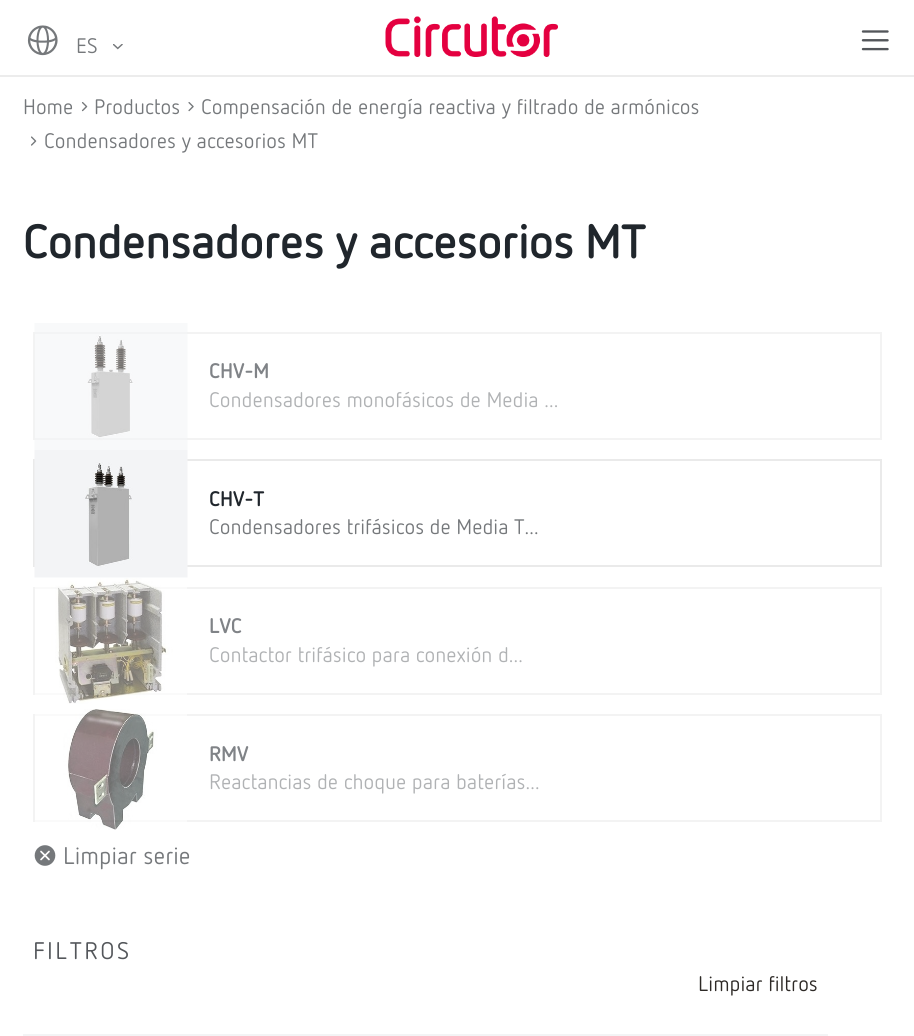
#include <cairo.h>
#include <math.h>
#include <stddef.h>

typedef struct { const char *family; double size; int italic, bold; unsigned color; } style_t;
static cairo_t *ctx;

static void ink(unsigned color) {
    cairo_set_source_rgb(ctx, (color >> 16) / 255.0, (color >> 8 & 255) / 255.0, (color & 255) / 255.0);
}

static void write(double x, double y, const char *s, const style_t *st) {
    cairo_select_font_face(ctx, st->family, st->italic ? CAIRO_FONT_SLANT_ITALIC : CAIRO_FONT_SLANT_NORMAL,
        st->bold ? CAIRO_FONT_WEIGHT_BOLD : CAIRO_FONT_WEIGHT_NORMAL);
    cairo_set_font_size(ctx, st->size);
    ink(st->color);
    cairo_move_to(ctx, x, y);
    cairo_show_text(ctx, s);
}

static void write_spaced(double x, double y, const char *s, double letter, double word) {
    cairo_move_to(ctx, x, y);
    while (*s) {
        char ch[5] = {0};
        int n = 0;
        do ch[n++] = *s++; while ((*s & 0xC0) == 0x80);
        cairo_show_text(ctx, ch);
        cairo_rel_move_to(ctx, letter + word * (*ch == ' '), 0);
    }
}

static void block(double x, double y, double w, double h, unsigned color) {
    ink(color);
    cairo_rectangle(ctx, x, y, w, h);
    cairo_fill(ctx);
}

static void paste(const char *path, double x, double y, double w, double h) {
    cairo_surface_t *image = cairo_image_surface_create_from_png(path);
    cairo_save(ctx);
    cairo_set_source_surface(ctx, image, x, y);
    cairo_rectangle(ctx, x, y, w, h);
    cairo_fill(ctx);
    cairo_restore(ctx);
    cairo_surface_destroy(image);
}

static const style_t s1 = {"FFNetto", 21, 0, 0, 0x75787b};
static const style_t s2 = {"FFNetto", 21, 0, 0, 0xb0b2b4};
static const style_t s3 = {"FFNetto", 24, 0, 0, 0x75787b};
static const style_t s4 = {"FFNetto", 21, 0, 0, 0x2d2926};

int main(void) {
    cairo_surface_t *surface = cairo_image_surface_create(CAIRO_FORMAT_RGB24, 914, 1036);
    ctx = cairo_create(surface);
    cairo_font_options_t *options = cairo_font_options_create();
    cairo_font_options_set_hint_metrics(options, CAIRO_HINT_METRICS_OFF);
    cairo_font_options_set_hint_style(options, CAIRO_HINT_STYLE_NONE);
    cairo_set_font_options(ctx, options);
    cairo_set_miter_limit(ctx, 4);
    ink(0xffffff);
    cairo_paint(ctx);
    block(0, 75, 914, 2, 0xececec);
    paste("pic1.png", 27, 25, 31, 31);
    paste("pic2.png", 113, 44, 10, 6);
    write(76, 53, "ES", &s1);
    paste("pic3.png", 385, 16, 173, 41);
    paste("pic4.png", 861, 30, 28, 21);
    write(23, 114, "Home", &s1);
    paste("pic5.png", 81, 102, 7, 10);
    write(94, 114, "Productos", &s1);
    paste("pic6.png", 188, 102, 6, 10);
    write(201, 114, "Compensación de energía reactiva y filtrado de armónicos", &s1);
    paste("pic7.png", 31, 136, 6, 10);
    write(44, 148, "Condensadores y accesorios MT", &s1);
    cairo_select_font_face(ctx, "FFNetto", CAIRO_FONT_SLANT_NORMAL, CAIRO_FONT_WEIGHT_BOLD);
    cairo_set_font_size(ctx, 48);
    ink(0x20262c);
    write_spaced(23, 258, "Condensadores y accesorios MT", -0.95, 0);
    cairo_rectangle(ctx, 34, 333, 847, 106);
    ink(0xf3f3f3);
    cairo_stroke(ctx);
    paste("pic8.png", 34, 323, 154, 127);
    cairo_set_font_size(ctx, 21);
    ink(0x808387);
    write_spaced(209, 378, "CHV-M", -0.25, 0);
    write(209, 407, "Condensadores monofásicos de Media ...", &s2);
    cairo_rectangle(ctx, 34, 460, 847, 106);
    ink(0xeaeaea);
    cairo_stroke(ctx);
    paste("pic9.png", 34, 450, 154, 128);
    cairo_select_font_face(ctx, "FFNetto", CAIRO_FONT_SLANT_NORMAL, CAIRO_FONT_WEIGHT_BOLD);
    ink(0x20262c);
    write_spaced(209, 506, "CHV-T", -0.25, 0);
    write(209, 534, "Condensadores trifásicos de Media T...", &s1);
    cairo_rectangle(ctx, 34, 588, 847, 106);
    ink(0xf3f3f3);
    cairo_stroke(ctx);
    paste("pic10.png", 35, 578, 152, 126);
    cairo_select_font_face(ctx, "FFNetto", CAIRO_FONT_SLANT_NORMAL, CAIRO_FONT_WEIGHT_BOLD);
    ink(0x808387);
    write_spaced(209, 633, "LVC", -0.25, 0);
    write(209, 662, "Contactor trifásico para conexión d...", &s2);
    cairo_rectangle(ctx, 34, 715, 847, 106);
    ink(0xf3f3f3);
    cairo_stroke(ctx);
    paste("pic11.png", 35, 709, 152, 121);
    cairo_select_font_face(ctx, "FFNetto", CAIRO_FONT_SLANT_NORMAL, CAIRO_FONT_WEIGHT_BOLD);
    ink(0x808387);
    write_spaced(209, 761, "RMV", -0.25, 0);
    write(209, 789, "Reactancias de choque para baterías...", &s2);
    paste("pic12.png", 34, 845, 22, 21);
    write(63, 864, "Limpiar serie", &s3);
    ink(0x53565a);
    write_spaced(33, 959, "FILTROS", 2.5, 0);
    write(698, 991, "Limpiar filtros", &s4);
    block(23, 1034, 805, 2, 0xf3f4f5);
    cairo_surface_write_to_png(surface, "screenshot.png");
    cairo_font_options_destroy(options);
    cairo_destroy(ctx);
    cairo_surface_destroy(surface);
    return 0;
}
